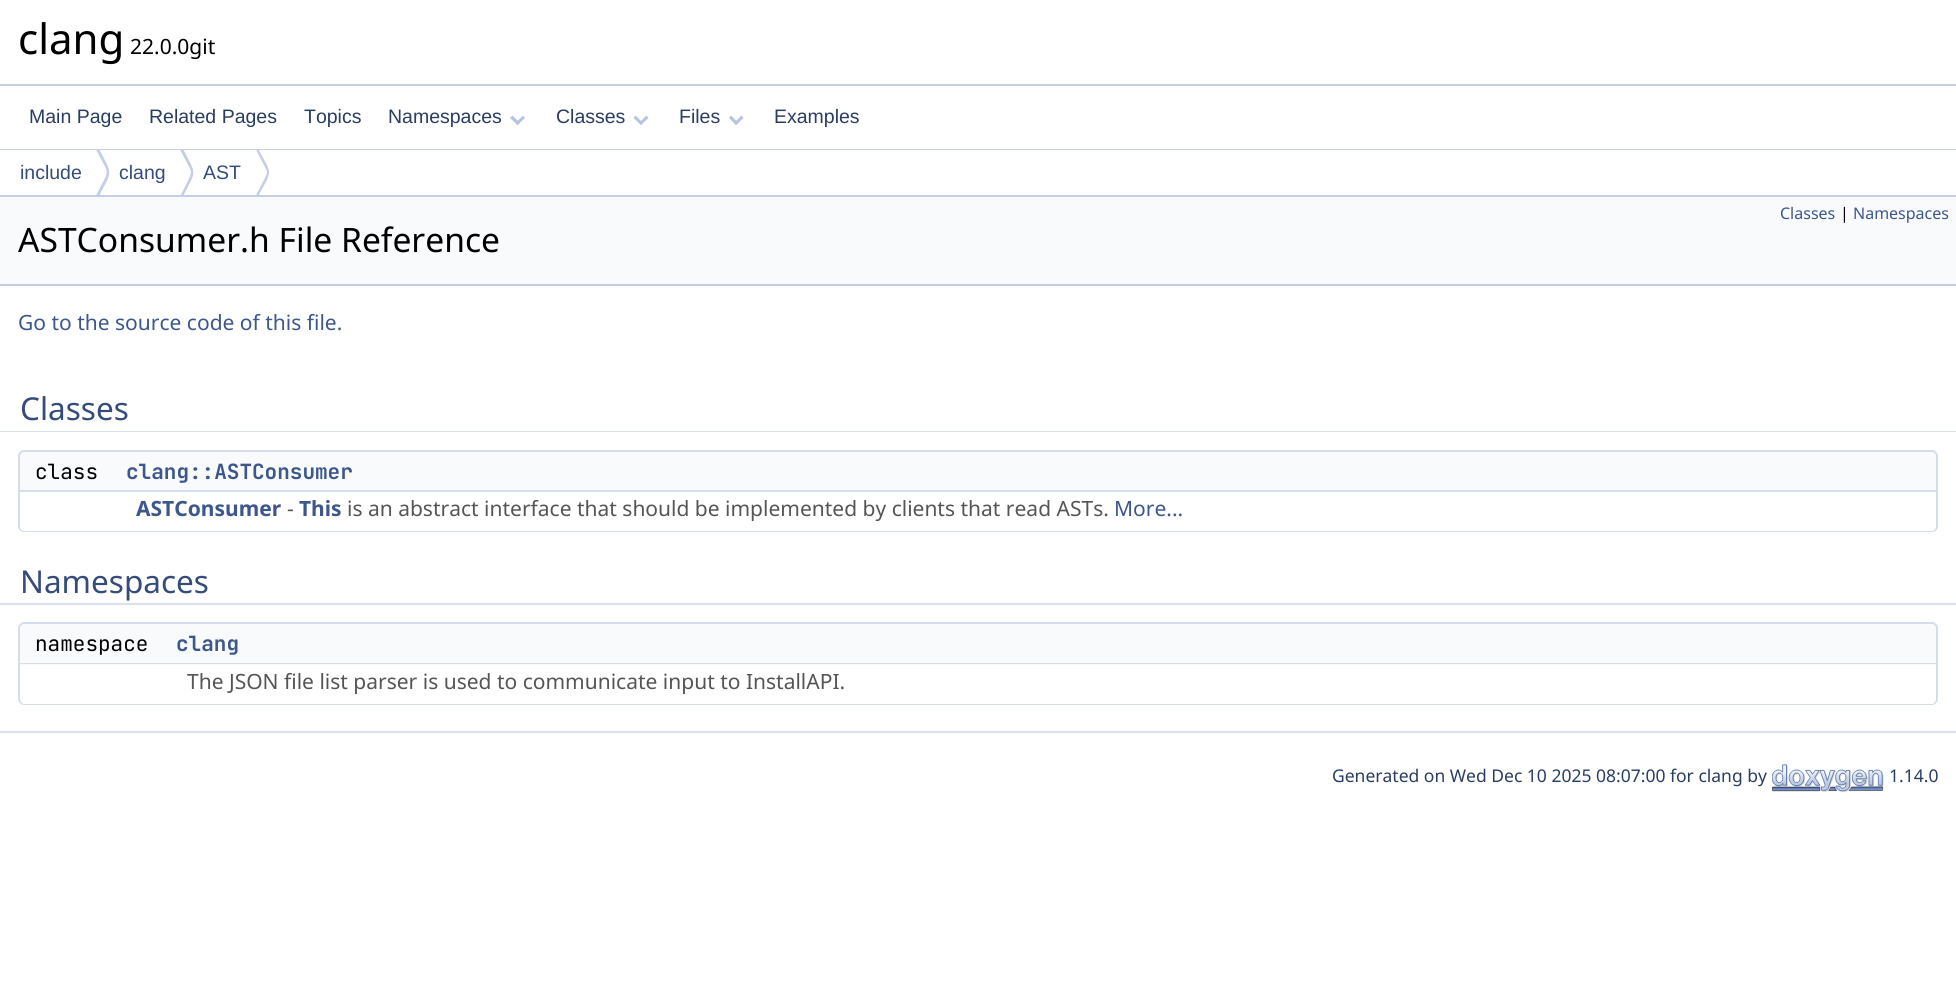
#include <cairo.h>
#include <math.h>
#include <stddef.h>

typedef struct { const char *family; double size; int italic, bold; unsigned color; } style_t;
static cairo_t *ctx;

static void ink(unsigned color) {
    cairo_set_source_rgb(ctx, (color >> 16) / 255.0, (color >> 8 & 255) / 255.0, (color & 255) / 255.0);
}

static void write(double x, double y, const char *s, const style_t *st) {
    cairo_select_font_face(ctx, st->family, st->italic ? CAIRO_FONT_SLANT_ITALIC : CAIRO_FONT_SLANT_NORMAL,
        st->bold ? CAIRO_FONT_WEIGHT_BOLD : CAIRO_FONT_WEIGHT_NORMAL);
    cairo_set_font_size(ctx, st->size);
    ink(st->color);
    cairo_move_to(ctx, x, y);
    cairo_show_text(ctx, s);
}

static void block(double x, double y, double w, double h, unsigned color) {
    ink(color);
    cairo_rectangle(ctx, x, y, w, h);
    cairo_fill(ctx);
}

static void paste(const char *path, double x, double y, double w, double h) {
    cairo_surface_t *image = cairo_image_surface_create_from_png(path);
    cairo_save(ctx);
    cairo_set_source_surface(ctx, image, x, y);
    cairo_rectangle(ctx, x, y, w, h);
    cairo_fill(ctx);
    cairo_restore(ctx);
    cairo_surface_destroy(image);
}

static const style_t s1 = {"Noto Sans", 42, 0, 0, 0x000000};
static const style_t s2 = {"Noto Sans", 21, 0, 0, 0x000000};
static const style_t s3 = {"Liberation Sans", 19.5, 0, 0, 0x2a3d61};
static const style_t s4 = {"Liberation Sans", 19.5, 0, 0, 0x354c7b};
static const style_t s5 = {"Noto Sans", 16, 0, 0, 0x3d578c};
static const style_t s6 = {"Noto Sans", 16, 0, 0, 0x000000};
static const style_t s7 = {"Noto Sans", 33.6, 0, 0, 0x000000};
static const style_t s8 = {"Noto Sans", 21, 0, 0, 0x3d578c};
static const style_t s9 = {"Noto Sans", 31.5, 0, 0, 0x354c7b};
static const style_t s10 = {"JetBrains Mono", 21, 0, 0, 0x000000};
static const style_t s11 = {"JetBrains Mono", 21, 0, 1, 0x3d578c};
static const style_t s12 = {"Noto Sans", 21, 0, 1, 0x3d578c};
static const style_t s13 = {"Noto Sans", 21, 0, 0, 0x555555};
static const style_t s14 = {"Noto Sans", 17.5, 0, 0, 0x2a3d61};

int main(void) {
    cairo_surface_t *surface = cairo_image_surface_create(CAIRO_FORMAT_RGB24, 1956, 1003);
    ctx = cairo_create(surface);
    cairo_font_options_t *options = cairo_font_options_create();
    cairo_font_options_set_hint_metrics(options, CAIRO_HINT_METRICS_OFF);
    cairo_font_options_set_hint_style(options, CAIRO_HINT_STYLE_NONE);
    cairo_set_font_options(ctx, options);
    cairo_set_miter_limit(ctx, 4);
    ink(0xffffff);
    cairo_paint(ctx);
    block(0, 84, 1956, 2, 0xc4cfe5);
    write(18, 54, "clang", &s1);
    write(130, 54, "22.0.0git", &s2);
    block(0, 149, 1956, 1, 0xc4cfe5);
    write(29, 123, "Main Page", &s3);
    write(149, 123, "Related Pages", &s3);
    write(304, 123, "Topics", &s3);
    write(388, 123, "Namespaces", &s3);
    ink(0xb6c4df);
    cairo_new_path(ctx);
    cairo_move_to(ctx, 523, 115.5);
    cairo_line_to(ctx, 525, 118);
    cairo_line_to(ctx, 517.5, 125);
    cairo_line_to(ctx, 515.5, 123);
    cairo_close_path(ctx);
    cairo_fill(ctx);
    cairo_new_path(ctx);
    cairo_move_to(ctx, 512.5, 115.5);
    cairo_line_to(ctx, 520, 123);
    cairo_line_to(ctx, 517.5, 125);
    cairo_line_to(ctx, 510, 118);
    cairo_close_path(ctx);
    cairo_fill(ctx);
    write(556, 123, "Classes", &s3);
    ink(0xb6c4df);
    cairo_new_path(ctx);
    cairo_move_to(ctx, 646.5, 115.5);
    cairo_line_to(ctx, 648.5, 118);
    cairo_line_to(ctx, 641, 125);
    cairo_line_to(ctx, 639, 123);
    cairo_close_path(ctx);
    cairo_fill(ctx);
    cairo_new_path(ctx);
    cairo_move_to(ctx, 635.5, 115.5);
    cairo_line_to(ctx, 643, 123);
    cairo_line_to(ctx, 641, 125);
    cairo_line_to(ctx, 633.5, 118);
    cairo_close_path(ctx);
    cairo_fill(ctx);
    write(679, 123, "Files", &s3);
    ink(0xb6c4df);
    cairo_new_path(ctx);
    cairo_move_to(ctx, 741.5, 115.5);
    cairo_line_to(ctx, 743.5, 118);
    cairo_line_to(ctx, 736, 125);
    cairo_line_to(ctx, 734, 123);
    cairo_close_path(ctx);
    cairo_fill(ctx);
    cairo_new_path(ctx);
    cairo_move_to(ctx, 731, 115.5);
    cairo_line_to(ctx, 738.5, 123);
    cairo_line_to(ctx, 736, 125);
    cairo_line_to(ctx, 729, 118);
    cairo_close_path(ctx);
    cairo_fill(ctx);
    write(774, 123, "Examples", &s3);
    block(0, 195, 1956, 2, 0xc4cfe5);
    write(20, 179, "include", &s4);
    cairo_save(ctx);
    cairo_rectangle(ctx, 0, 150, 1956, 45);
    cairo_clip(ctx);
    ink(0xc4cfe5);
    cairo_new_path(ctx);
    cairo_move_to(ctx, 98, 147);
    cairo_line_to(ctx, 96, 150);
    cairo_curve_to(ctx, 110, 177, 110, 167, 96, 195);
    cairo_line_to(ctx, 98, 198);
    cairo_curve_to(ctx, 113, 169, 113, 176, 98, 147);
    cairo_close_path(ctx);
    cairo_fill(ctx);
    cairo_restore(ctx);
    ink(0xffffff);
    cairo_new_path(ctx);
    cairo_move_to(ctx, 96, 150);
    cairo_curve_to(ctx, 110, 178, 110, 167, 96, 195);
    cairo_curve_to(ctx, 90, 183, 90, 162, 96, 150);
    cairo_close_path(ctx);
    cairo_fill(ctx);
    write(119, 179, "clang", &s4);
    cairo_save(ctx);
    cairo_rectangle(ctx, 0, 150, 1956, 45);
    cairo_clip(ctx);
    ink(0xc4cfe5);
    cairo_new_path(ctx);
    cairo_move_to(ctx, 182, 147);
    cairo_line_to(ctx, 180, 150);
    cairo_curve_to(ctx, 194, 177, 194, 167, 181, 195);
    cairo_line_to(ctx, 182, 198);
    cairo_curve_to(ctx, 197, 169, 197, 176, 182, 147);
    cairo_close_path(ctx);
    cairo_fill(ctx);
    cairo_restore(ctx);
    ink(0xffffff);
    cairo_new_path(ctx);
    cairo_move_to(ctx, 180, 150);
    cairo_curve_to(ctx, 194, 178, 194, 167, 180, 195);
    cairo_curve_to(ctx, 174, 183, 174, 162, 180, 150);
    cairo_close_path(ctx);
    cairo_fill(ctx);
    write(203, 179, "AST", &s4);
    cairo_save(ctx);
    cairo_rectangle(ctx, 0, 150, 1956, 45);
    cairo_clip(ctx);
    ink(0xc4cfe5);
    cairo_new_path(ctx);
    cairo_move_to(ctx, 257, 147);
    cairo_line_to(ctx, 257, 149);
    cairo_line_to(ctx, 256, 151);
    cairo_line_to(ctx, 266, 170);
    cairo_curve_to(ctx, 267, 171, 267, 174, 266, 175);
    cairo_line_to(ctx, 256, 195);
    cairo_line_to(ctx, 255, 193);
    cairo_line_to(ctx, 257, 198);
    cairo_curve_to(ctx, 273, 169, 273, 176, 257, 147);
    cairo_close_path(ctx);
    cairo_fill(ctx);
    cairo_restore(ctx);
    ink(0xffffff);
    cairo_new_path(ctx);
    cairo_move_to(ctx, 256, 150);
    cairo_curve_to(ctx, 270, 178, 270, 167, 256, 195);
    cairo_curve_to(ctx, 250, 183, 250, 162, 256, 150);
    cairo_close_path(ctx);
    cairo_fill(ctx);
    block(0, 197, 1956, 87, 0xf9fafc);
    block(0, 284, 1956, 2, 0xc4cfe5);
    write(1780, 219, "Classes", &s5);
    write(1840, 219, "|", &s6);
    write(1853, 219, "Namespaces", &s5);
    write(18, 252, "ASTConsumer.h File Reference", &s7);
    write(18, 330, "Go to the source code of this file.", &s8);
    ink(0xd9e0ee);
    cairo_new_path(ctx);
    cairo_move_to(ctx, 0, 381);
    cairo_line_to(ctx, 0, 432);
    cairo_line_to(ctx, 1917, 432);
    cairo_line_to(ctx, 1917, 430);
    cairo_line_to(ctx, 20, 430);
    cairo_line_to(ctx, 20, 381);
    cairo_close_path(ctx);
    cairo_fill(ctx);
    cairo_new_path(ctx);
    cairo_move_to(ctx, 39, 430);
    cairo_line_to(ctx, 39, 432);
    cairo_line_to(ctx, 1956, 432);
    cairo_line_to(ctx, 1956, 381);
    cairo_line_to(ctx, 1936, 381);
    cairo_line_to(ctx, 1936, 430);
    cairo_close_path(ctx);
    cairo_fill(ctx);
    ink(0xffffff);
    cairo_new_path(ctx);
    cairo_move_to(ctx, 0, 380);
    cairo_line_to(ctx, 0, 431);
    cairo_line_to(ctx, 1917, 431);
    cairo_line_to(ctx, 1917, 430);
    cairo_line_to(ctx, 20, 430);
    cairo_line_to(ctx, 20, 380);
    cairo_close_path(ctx);
    cairo_fill(ctx);
    cairo_new_path(ctx);
    cairo_move_to(ctx, 39, 430);
    cairo_line_to(ctx, 39, 431);
    cairo_line_to(ctx, 1956, 431);
    cairo_line_to(ctx, 1956, 380);
    cairo_line_to(ctx, 1936, 380);
    cairo_line_to(ctx, 1936, 430);
    cairo_close_path(ctx);
    cairo_fill(ctx);
    write(20, 420, "Classes", &s9);
    ink(0xf9fafc);
    cairo_new_path(ctx);
    cairo_move_to(ctx, 24, 450);
    cairo_line_to(ctx, 125, 450);
    cairo_line_to(ctx, 125, 492);
    cairo_line_to(ctx, 18, 492);
    cairo_line_to(ctx, 18, 456);
    cairo_curve_to(ctx, 18, 452.5, 20.5, 450, 24, 450);
    cairo_close_path(ctx);
    cairo_fill(ctx);
    ink(0xd5ddec);
    cairo_set_fill_rule(ctx, CAIRO_FILL_RULE_EVEN_ODD);
    cairo_new_path(ctx);
    cairo_move_to(ctx, 24, 450);
    cairo_line_to(ctx, 124, 450);
    cairo_line_to(ctx, 124, 492);
    cairo_line_to(ctx, 18, 492);
    cairo_line_to(ctx, 18, 456);
    cairo_curve_to(ctx, 18, 453, 21, 450, 24, 450);
    cairo_close_path(ctx);
    cairo_move_to(ctx, 24, 452);
    cairo_line_to(ctx, 124, 452);
    cairo_line_to(ctx, 124, 490);
    cairo_line_to(ctx, 20, 490);
    cairo_line_to(ctx, 20, 456);
    cairo_curve_to(ctx, 20, 454, 22, 452, 24, 452);
    cairo_close_path(ctx);
    cairo_fill(ctx);
    write(35, 479, "class", &s10);
    ink(0xf9fafc);
    cairo_new_path(ctx);
    cairo_move_to(ctx, 125, 450);
    cairo_line_to(ctx, 1932, 450);
    cairo_curve_to(ctx, 1935.5, 450, 1938, 452.5, 1938, 456);
    cairo_line_to(ctx, 1938, 492);
    cairo_line_to(ctx, 125, 492);
    cairo_close_path(ctx);
    cairo_fill(ctx);
    ink(0xd5ddec);
    cairo_new_path(ctx);
    cairo_move_to(ctx, 124, 450);
    cairo_line_to(ctx, 1932, 450);
    cairo_curve_to(ctx, 1935, 450, 1938, 453, 1938, 456);
    cairo_line_to(ctx, 1938, 492);
    cairo_line_to(ctx, 124, 492);
    cairo_close_path(ctx);
    cairo_move_to(ctx, 124, 452);
    cairo_line_to(ctx, 1932, 452);
    cairo_curve_to(ctx, 1934, 452, 1936, 454, 1936, 456);
    cairo_line_to(ctx, 1936, 490);
    cairo_line_to(ctx, 124, 490);
    cairo_close_path(ctx);
    cairo_fill(ctx);
    write(126, 479, "clang::ASTConsumer", &s11);
    ink(0xd5ddec);
    cairo_new_path(ctx);
    cairo_move_to(ctx, 18, 492);
    cairo_line_to(ctx, 124, 492);
    cairo_line_to(ctx, 124, 532);
    cairo_line_to(ctx, 24, 532);
    cairo_curve_to(ctx, 21, 532, 18, 530, 18, 526);
    cairo_close_path(ctx);
    cairo_move_to(ctx, 20, 492);
    cairo_line_to(ctx, 124, 492);
    cairo_line_to(ctx, 124, 531);
    cairo_line_to(ctx, 24, 531);
    cairo_curve_to(ctx, 22, 531, 20, 529, 20, 526);
    cairo_close_path(ctx);
    cairo_fill(ctx);
    cairo_new_path(ctx);
    cairo_move_to(ctx, 124, 492);
    cairo_line_to(ctx, 1938, 492);
    cairo_line_to(ctx, 1938, 526);
    cairo_curve_to(ctx, 1938, 530, 1935, 532, 1932, 532);
    cairo_line_to(ctx, 124, 532);
    cairo_close_path(ctx);
    cairo_move_to(ctx, 124, 492);
    cairo_line_to(ctx, 1936, 492);
    cairo_line_to(ctx, 1936, 526);
    cairo_curve_to(ctx, 1936, 529, 1934, 531, 1932, 531);
    cairo_line_to(ctx, 124, 531);
    cairo_close_path(ctx);
    cairo_fill(ctx);
    write(136, 516, "ASTConsumer", &s12);
    write(287, 516, "-", &s13);
    write(299, 516, "This", &s12);
    write(347, 516, "is an abstract interface that should be implemented by clients that read ASTs.", &s13);
    write(1114, 516, "More...", &s8);
    ink(0xd9e0ee);
    cairo_set_fill_rule(ctx, CAIRO_FILL_RULE_WINDING);
    cairo_new_path(ctx);
    cairo_move_to(ctx, 0, 554);
    cairo_line_to(ctx, 0, 605);
    cairo_line_to(ctx, 1917, 605);
    cairo_line_to(ctx, 1917, 603);
    cairo_line_to(ctx, 20, 603);
    cairo_line_to(ctx, 20, 554);
    cairo_close_path(ctx);
    cairo_fill(ctx);
    cairo_new_path(ctx);
    cairo_move_to(ctx, 39, 603);
    cairo_line_to(ctx, 39, 605);
    cairo_line_to(ctx, 1956, 605);
    cairo_line_to(ctx, 1956, 554);
    cairo_line_to(ctx, 1936, 554);
    cairo_line_to(ctx, 1936, 603);
    cairo_close_path(ctx);
    cairo_fill(ctx);
    block(0, 554, 20, 49, 0xffffff);
    block(1936, 554, 20, 49, 0xffffff);
    write(20, 593, "Namespaces", &s9);
    ink(0xf9fafc);
    cairo_new_path(ctx);
    cairo_move_to(ctx, 24, 623);
    cairo_line_to(ctx, 174, 623);
    cairo_line_to(ctx, 174, 665);
    cairo_line_to(ctx, 18, 665);
    cairo_line_to(ctx, 18, 629);
    cairo_curve_to(ctx, 18, 625.5, 20.5, 623, 24, 623);
    cairo_close_path(ctx);
    cairo_fill(ctx);
    ink(0xd5ddec);
    cairo_set_fill_rule(ctx, CAIRO_FILL_RULE_EVEN_ODD);
    cairo_new_path(ctx);
    cairo_move_to(ctx, 24, 622);
    cairo_line_to(ctx, 174, 622);
    cairo_line_to(ctx, 174, 664);
    cairo_line_to(ctx, 18, 664);
    cairo_line_to(ctx, 18, 628);
    cairo_curve_to(ctx, 18, 625, 21, 622, 24, 622);
    cairo_close_path(ctx);
    cairo_move_to(ctx, 24, 624);
    cairo_line_to(ctx, 174, 624);
    cairo_line_to(ctx, 174, 663);
    cairo_line_to(ctx, 20, 663);
    cairo_line_to(ctx, 20, 628);
    cairo_curve_to(ctx, 20, 626, 22, 624, 24, 624);
    cairo_close_path(ctx);
    cairo_fill(ctx);
    write(35, 651, "namespace", &s10);
    ink(0xf9fafc);
    cairo_new_path(ctx);
    cairo_move_to(ctx, 174, 623);
    cairo_line_to(ctx, 1932, 623);
    cairo_curve_to(ctx, 1935.5, 623, 1938, 625.5, 1938, 629);
    cairo_line_to(ctx, 1938, 665);
    cairo_line_to(ctx, 174, 665);
    cairo_close_path(ctx);
    cairo_fill(ctx);
    ink(0xd5ddec);
    cairo_new_path(ctx);
    cairo_move_to(ctx, 174, 622);
    cairo_line_to(ctx, 1932, 622);
    cairo_curve_to(ctx, 1935, 622, 1938, 625, 1938, 628);
    cairo_line_to(ctx, 1938, 664);
    cairo_line_to(ctx, 174, 664);
    cairo_close_path(ctx);
    cairo_move_to(ctx, 174, 624);
    cairo_line_to(ctx, 1932, 624);
    cairo_curve_to(ctx, 1934, 624, 1936, 626, 1936, 628);
    cairo_line_to(ctx, 1936, 663);
    cairo_line_to(ctx, 174, 663);
    cairo_close_path(ctx);
    cairo_fill(ctx);
    write(176, 651, "clang", &s11);
    ink(0xd5ddec);
    cairo_new_path(ctx);
    cairo_move_to(ctx, 18, 664);
    cairo_line_to(ctx, 174, 664);
    cairo_line_to(ctx, 174, 705);
    cairo_line_to(ctx, 24, 705);
    cairo_curve_to(ctx, 21, 705, 18, 702, 18, 699);
    cairo_close_path(ctx);
    cairo_move_to(ctx, 20, 664);
    cairo_line_to(ctx, 174, 664);
    cairo_line_to(ctx, 174, 704);
    cairo_line_to(ctx, 24, 704);
    cairo_curve_to(ctx, 22, 704, 20, 701, 20, 699);
    cairo_close_path(ctx);
    cairo_fill(ctx);
    cairo_new_path(ctx);
    cairo_move_to(ctx, 174, 664);
    cairo_line_to(ctx, 1938, 664);
    cairo_line_to(ctx, 1938, 699);
    cairo_curve_to(ctx, 1938, 702, 1935, 705, 1932, 705);
    cairo_line_to(ctx, 174, 705);
    cairo_close_path(ctx);
    cairo_move_to(ctx, 174, 664);
    cairo_line_to(ctx, 1936, 664);
    cairo_line_to(ctx, 1936, 699);
    cairo_curve_to(ctx, 1936, 701, 1934, 704, 1932, 704);
    cairo_line_to(ctx, 174, 704);
    cairo_close_path(ctx);
    cairo_fill(ctx);
    write(187, 689, "The JSON file list parser is used to communicate input to InstallAPI.", &s13);
    block(0, 731, 1956, 2, 0xd9e0ee);
    write(1332, 782, "Generated on Wed Dec 10 2025 08:07:00 for clang by", &s14);
    paste("pic1.png", 1772, 764, 112, 29);
    write(1889, 782, "1.14.0", &s14);
    cairo_surface_write_to_png(surface, "screenshot.png");
    cairo_font_options_destroy(options);
    cairo_destroy(ctx);
    cairo_surface_destroy(surface);
    return 0;
}
